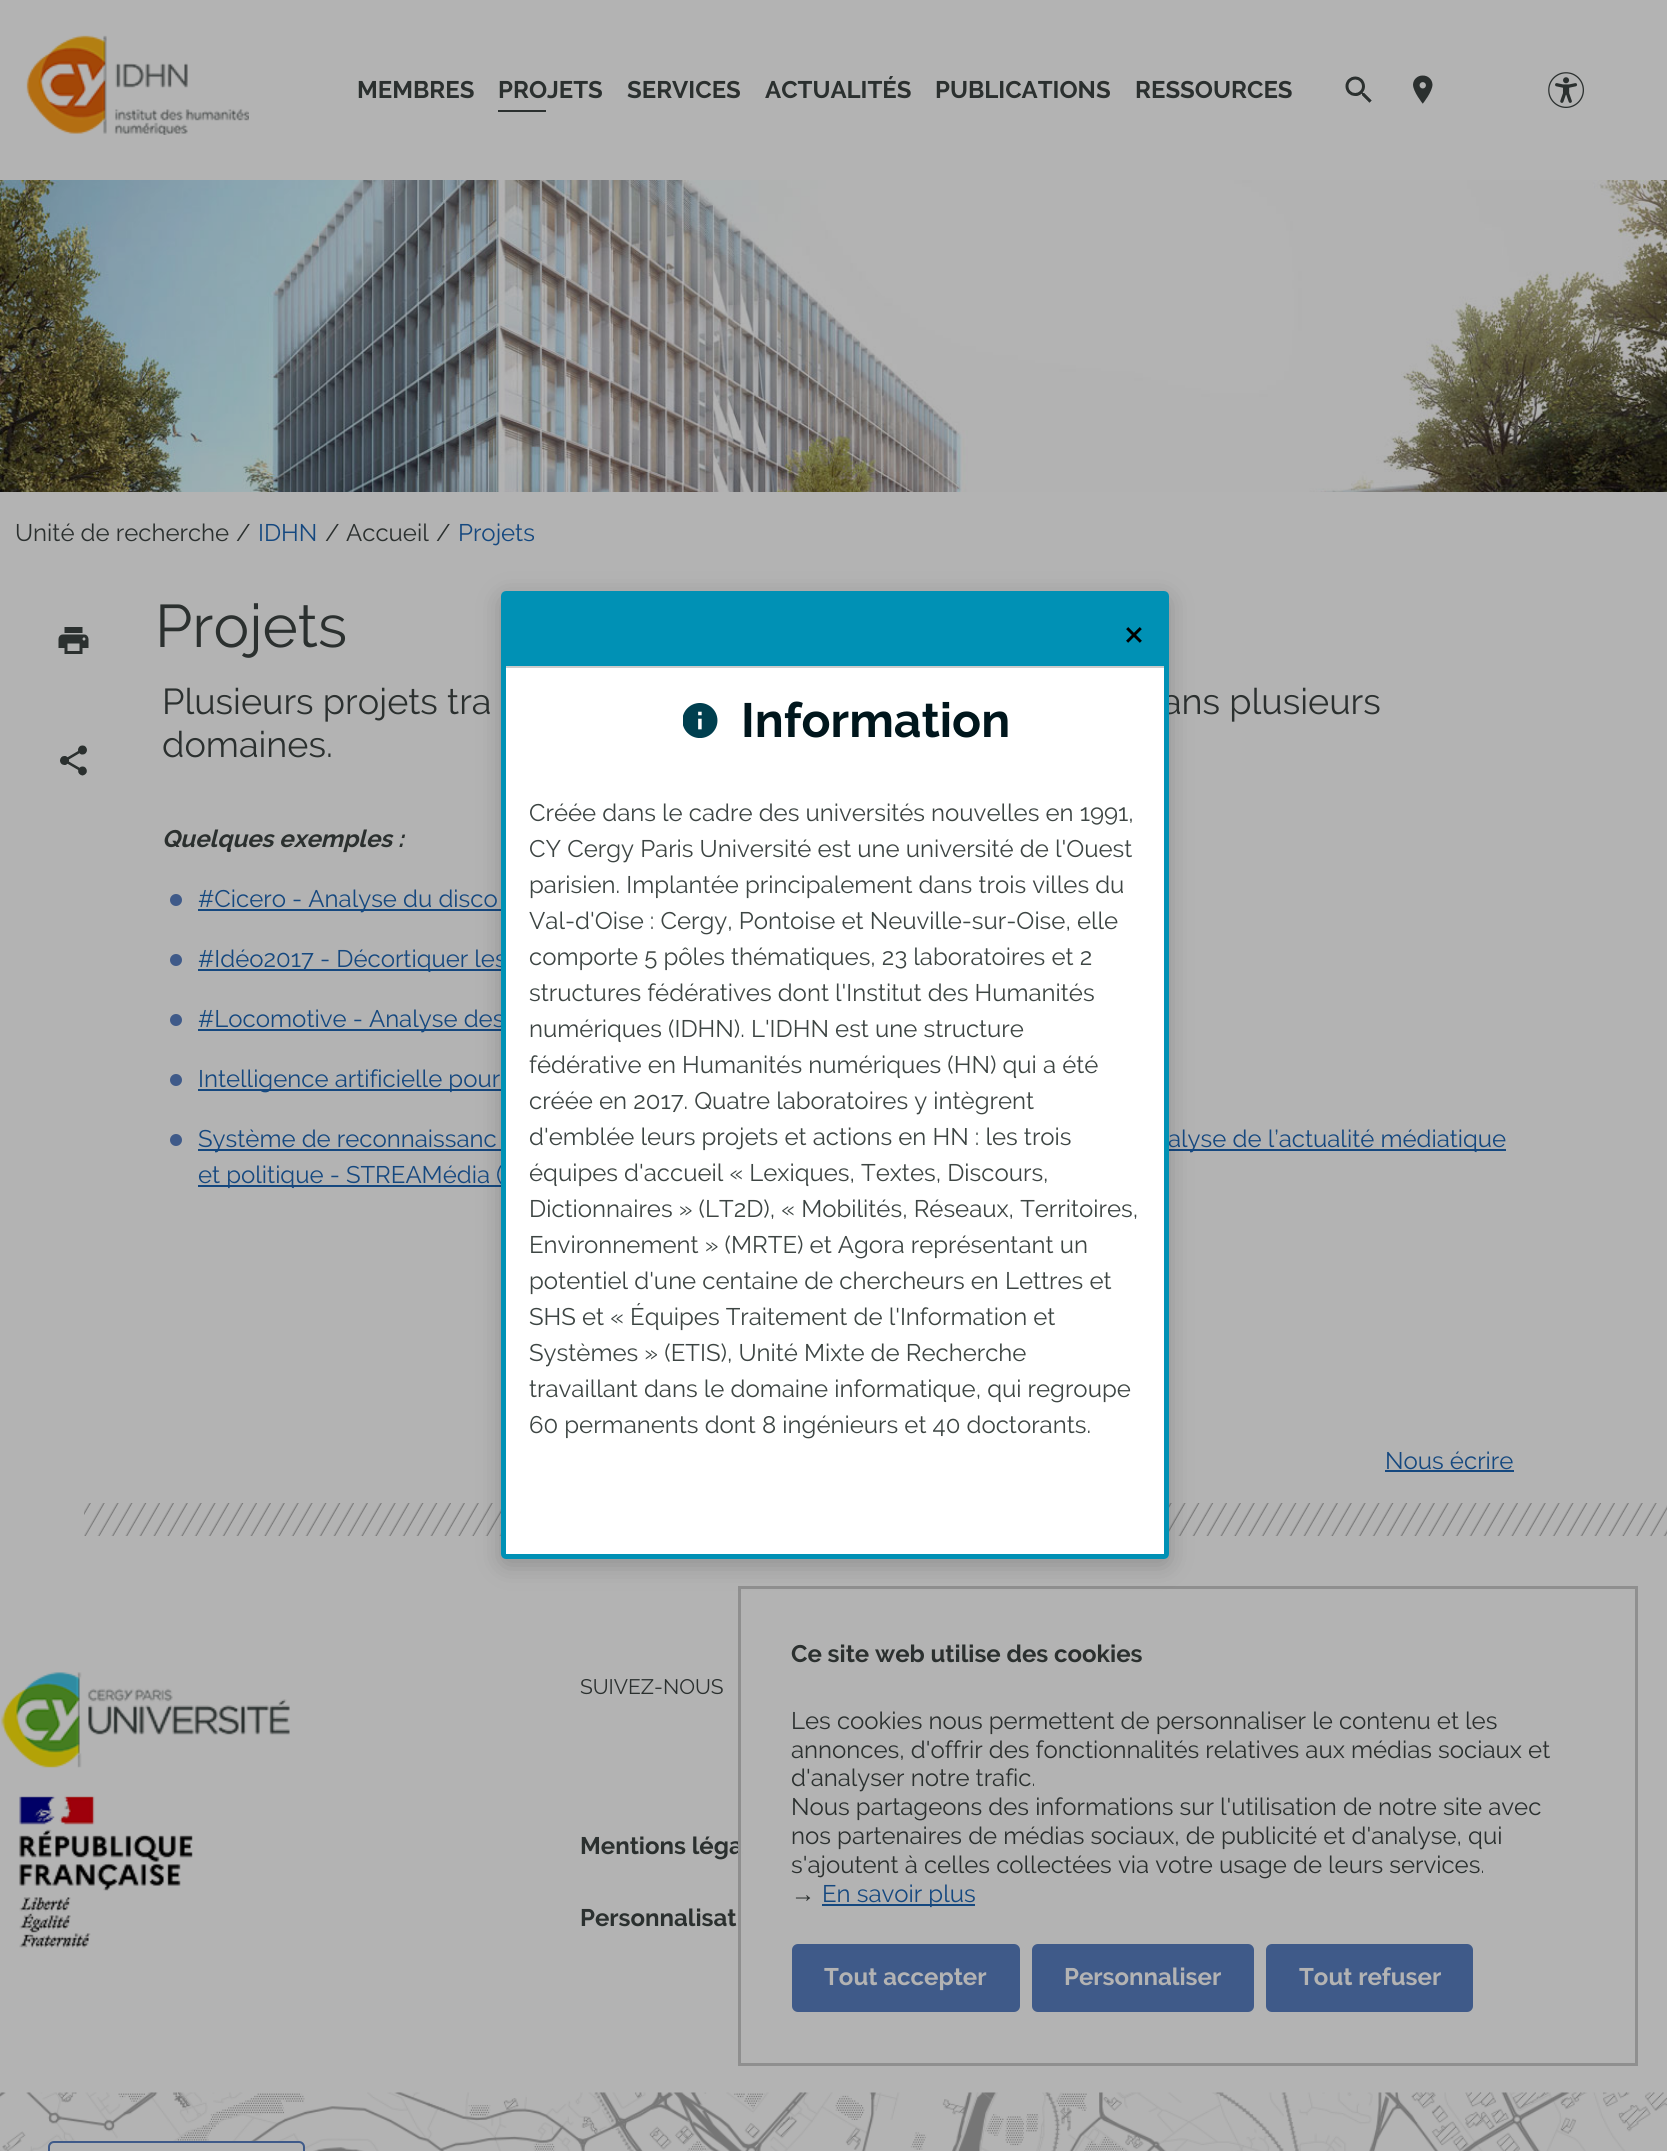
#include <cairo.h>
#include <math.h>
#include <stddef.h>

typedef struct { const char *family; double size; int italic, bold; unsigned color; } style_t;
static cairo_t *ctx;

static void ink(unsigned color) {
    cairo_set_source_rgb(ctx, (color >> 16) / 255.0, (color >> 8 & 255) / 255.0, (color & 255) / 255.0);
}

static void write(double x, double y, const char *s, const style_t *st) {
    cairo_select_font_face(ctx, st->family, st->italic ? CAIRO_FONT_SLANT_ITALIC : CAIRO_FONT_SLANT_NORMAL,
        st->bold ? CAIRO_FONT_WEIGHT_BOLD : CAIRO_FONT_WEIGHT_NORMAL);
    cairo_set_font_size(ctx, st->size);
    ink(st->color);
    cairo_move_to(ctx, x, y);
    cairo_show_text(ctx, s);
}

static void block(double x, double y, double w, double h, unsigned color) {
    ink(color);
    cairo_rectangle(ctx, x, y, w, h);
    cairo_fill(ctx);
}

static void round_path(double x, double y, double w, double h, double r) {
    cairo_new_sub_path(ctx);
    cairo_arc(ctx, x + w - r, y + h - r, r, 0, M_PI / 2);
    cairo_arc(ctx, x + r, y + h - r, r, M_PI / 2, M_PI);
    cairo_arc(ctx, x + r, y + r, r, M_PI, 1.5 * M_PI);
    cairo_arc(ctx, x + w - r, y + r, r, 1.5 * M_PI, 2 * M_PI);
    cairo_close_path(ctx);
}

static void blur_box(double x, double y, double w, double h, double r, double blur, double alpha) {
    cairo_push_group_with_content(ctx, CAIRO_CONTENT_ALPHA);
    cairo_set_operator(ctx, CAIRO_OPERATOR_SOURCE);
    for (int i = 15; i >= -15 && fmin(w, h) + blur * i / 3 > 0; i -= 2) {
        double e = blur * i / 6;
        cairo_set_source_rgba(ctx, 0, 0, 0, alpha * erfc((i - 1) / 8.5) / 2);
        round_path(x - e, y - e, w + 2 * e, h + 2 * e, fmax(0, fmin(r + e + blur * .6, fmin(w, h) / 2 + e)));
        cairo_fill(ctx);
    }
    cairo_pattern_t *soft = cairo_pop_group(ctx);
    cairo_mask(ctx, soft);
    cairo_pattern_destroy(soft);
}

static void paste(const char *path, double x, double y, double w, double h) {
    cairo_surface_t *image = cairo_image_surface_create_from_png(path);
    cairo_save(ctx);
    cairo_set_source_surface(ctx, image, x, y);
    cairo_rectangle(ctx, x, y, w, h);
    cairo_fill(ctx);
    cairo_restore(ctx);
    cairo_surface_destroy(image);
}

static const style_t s1 = {"Raleway", 24, 0, 1, 0x2b302f};
static const style_t s2 = {"Raleway", 36, 0, 0, 0x2b302f};
static const style_t s3 = {"Raleway", 24, 0, 0, 0x15487f};
static const style_t s4 = {"Raleway", 48, 0, 0, 0x000000};
static const style_t s5 = {"Raleway", 48, 0, 1, 0x00161c};
static const style_t s6 = {"Raleway", 24, 0, 0, 0x3d4543};
static const style_t s7 = {"Raleway", 24, 0, 0, 0x2b302f};
static const style_t s8 = {"Raleway", 60, 0, 0, 0x2b302f};
static const style_t s9 = {"Raleway", 24, 1, 1, 0x2b302f};
static const style_t s10 = {"Raleway", 21, 0, 0, 0x2b302f};
static const style_t s11 = {"Liberation Sans", 24, 0, 0, 0x2b302f};
static const style_t s12 = {"Raleway", 24, 0, 1, 0xb3b3b3};

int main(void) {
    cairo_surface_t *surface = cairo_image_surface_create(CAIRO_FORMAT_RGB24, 1667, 2151);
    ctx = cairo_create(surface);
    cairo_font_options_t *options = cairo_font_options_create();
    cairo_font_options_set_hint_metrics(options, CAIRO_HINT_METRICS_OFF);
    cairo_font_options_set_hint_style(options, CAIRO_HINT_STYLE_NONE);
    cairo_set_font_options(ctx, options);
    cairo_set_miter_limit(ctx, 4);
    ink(0xb3b3b3);
    cairo_paint(ctx);
    paste("pic1.png", 26, 35, 223, 100);
    write(357, 98, "MEMBRES", &s1);
    write(498, 98, "PROJETS", &s1);
    block(498, 110, 48, 2, 0x2b302f);
    write(627, 98, "SERVICES", &s1);
    write(765, 98, "ACTUALITÉS", &s1);
    write(935, 98, "PUBLICATIONS", &s1);
    write(1135, 98, "RESSOURCES", &s1);
    paste("pic2.png", 1345, 76, 27, 27);
    paste("pic3.png", 1413, 75, 20, 29);
    paste("pic4.png", 1548, 72, 36, 36);
    block(198, 909, 303, 2, 0x15487f);
    block(198, 969, 303, 2, 0x15487f);
    block(198, 1029, 303, 2, 0x15487f);
    block(198, 1089, 303, 2, 0x15487f);
    block(198, 1149, 1308, 2, 0x15487f);
    block(198, 1185, 303, 2, 0x15487f);
    paste("pic9.png", 84, 1503, 1583, 33);
    write(580, 1854, "Mentions léga", &s1);
    block(741, 1845, 1, 10, 0xb3b3b3);
    cairo_rectangle(ctx, 739.5, 1587.5, 897, 477);
    ink(0x8f8f8f);
    cairo_set_line_width(ctx, 3);
    cairo_stroke(ctx);
    ink(0x000000);
    blur_box(501, 597, 668, 968, 5, 12, 0.2);
    write(1162, 714, "ans plusieurs", &s2);
    write(198, 967, "#Idéo2017 - Décortiquer les", &s3);
    write(198, 1027, "#Locomotive - Analyse des", &s3);
    write(1168, 1147, "alyse de l’actualité médiatique", &s3);
    write(198, 1183, "et politique - STREAMédia (", &s3);
    ink(0xffffff);
    round_path(503.5, 593.5, 663, 963, 2.5);
    cairo_fill_preserve(ctx);
    ink(0x0091b5);
    cairo_set_line_width(ctx, 5);
    cairo_stroke(ctx);
    cairo_new_path(ctx);
    cairo_move_to(ctx, 507, 596);
    cairo_line_to(ctx, 1163, 596);
    cairo_line_to(ctx, 1163, 668);
    cairo_line_to(ctx, 1166, 668);
    cairo_line_to(ctx, 1166, 596);
    cairo_close_path(ctx);
    cairo_fill(ctx);
    block(506, 596, 657, 70, 0x0091b5);
    block(506, 666, 658, 2, 0xcccccc);
    write(1123, 648, "×", &s4);
    paste("pic5.png", 683, 703, 35, 35);
    write(741, 737, "Information", &s5);
    write(529, 821, "Créée dans le cadre des universités nouvelles en 1991,", &s6);
    write(529, 857, "CY Cergy Paris Université est une université de l'Ouest", &s6);
    write(529, 893, "parisien. Implantée principalement dans trois villes du", &s6);
    write(529, 929, "Val-d'Oise : Cergy, Pontoise et Neuville-sur-Oise, elle", &s6);
    write(529, 965, "comporte 5 pôles thématiques, 23 laboratoires et 2", &s6);
    write(529, 1001, "structures fédératives dont l'Institut des Humanités", &s6);
    write(529, 1037, "numériques (IDHN). L'IDHN est une structure", &s6);
    write(529, 1073, "fédérative en Humanités numériques (HN) qui a été", &s6);
    write(529, 1109, "créée en 2017. Quatre laboratoires y intègrent", &s6);
    write(529, 1145, "d'emblée leurs projets et actions en HN : les trois", &s6);
    write(529, 1181, "équipes d'accueil « Lexiques, Textes, Discours,", &s6);
    write(529, 1217, "Dictionnaires » (LT2D), « Mobilités, Réseaux, Territoires,", &s6);
    write(529, 1253, "Environnement » (MRTE) et Agora représentant un", &s6);
    write(529, 1289, "potentiel d'une centaine de chercheurs en Lettres et", &s6);
    write(529, 1325, "SHS et « Équipes Traitement de l'Information et", &s6);
    write(529, 1361, "Systèmes » (ETIS), Unité Mixte de Recherche", &s6);
    write(529, 1397, "travaillant dans le domaine informatique, qui regroupe", &s6);
    write(529, 1433, "60 permanents dont 8 ingénieurs et 40 doctorants.", &s6);
    paste("pic6.png", 0, 180, 1667, 312);
    write(15, 541, "Unité de recherche", &s7);
    write(236, 541, "/", &s7);
    write(258, 541, "IDHN", &s3);
    write(325, 541, "/", &s7);
    write(346, 541, "Accueil", &s7);
    write(436, 541, "/", &s7);
    write(458, 541, "Projets", &s3);
    paste("pic7.png", 58, 627, 31, 27);
    paste("pic8.png", 60, 745, 27, 31);
    write(155, 647, "Projets", &s8);
    write(162, 714, "Plusieurs projets tra", &s2);
    write(162, 757, "domaines.", &s2);
    write(162, 847, "Quelques exemples :", &s9);
    ink(0x3f5a89);
    cairo_new_path(ctx);
    cairo_arc(ctx, 176, 900, 6, 0, 2 * M_PI);
    cairo_fill(ctx);
    write(198, 907, "#Cicero - Analyse du disco", &s3);
    ink(0x3f5a89);
    cairo_new_path(ctx);
    cairo_arc(ctx, 176, 960, 6, 0, 2 * M_PI);
    cairo_fill(ctx);
    cairo_arc(ctx, 176, 1020, 6, 0, 2 * M_PI);
    cairo_fill(ctx);
    cairo_arc(ctx, 176, 1080, 6, 0, 2 * M_PI);
    cairo_fill(ctx);
    write(198, 1087, "Intelligence artificielle pour", &s3);
    ink(0x3f5a89);
    cairo_new_path(ctx);
    cairo_arc(ctx, 176, 1140, 6, 0, 2 * M_PI);
    cairo_fill(ctx);
    write(198, 1147, "Système de reconnaissanc", &s3);
    write(1385, 1469, "Nous écrire", &s3);
    block(1385, 1470, 129, 2, 0x15487f);
    paste("pic10.png", 1, 1672, 289, 276);
    write(580, 1694, "SUIVEZ-NOUS", &s10);
    write(580, 1926, "Personnalisat", &s1);
    paste("pic11.png", 0, 2092, 1667, 59);
    ink(0xb3b3b3);
    round_path(49, 2142, 255, 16, 5);
    cairo_fill_preserve(ctx);
    ink(0x3f5a89);
    cairo_set_line_width(ctx, 2);
    cairo_stroke(ctx);
    write(791, 1662, "Ce site web utilise des cookies", &s1);
    write(791, 1729, "Les cookies nous permettent de personnaliser le contenu et les", &s7);
    write(791, 1758, "annonces, d'offrir des fonctionnalités relatives aux médias sociaux et", &s7);
    write(791, 1786, "d'analyser notre trafic.", &s7);
    write(791, 1815, "Nous partageons des informations sur l'utilisation de notre site avec", &s7);
    write(791, 1844, "nos partenaires de médias sociaux, de publicité et d'analyse, qui", &s7);
    write(791, 1873, "s'ajoutent à celles collectées via votre usage de leurs services.", &s7);
    write(791, 1902, "→", &s11);
    block(822, 1904, 153, 2, 0x15487f);
    write(822, 1902, "En savoir plus", &s3);
    ink(0x3f5a89);
    round_path(793, 1945, 226, 66, 5);
    cairo_fill_preserve(ctx);
    cairo_stroke(ctx);
    write(824, 1985, "Tout accepter", &s12);
    ink(0x3f5a89);
    round_path(1033, 1945, 220, 66, 5);
    cairo_fill_preserve(ctx);
    cairo_stroke(ctx);
    write(1064, 1985, "Personnaliser", &s12);
    ink(0x3f5a89);
    round_path(1267, 1945, 205, 66, 5);
    cairo_fill_preserve(ctx);
    cairo_stroke(ctx);
    write(1299, 1985, "Tout refuser", &s12);
    cairo_surface_write_to_png(surface, "screenshot.png");
    cairo_font_options_destroy(options);
    cairo_destroy(ctx);
    cairo_surface_destroy(surface);
    return 0;
}
